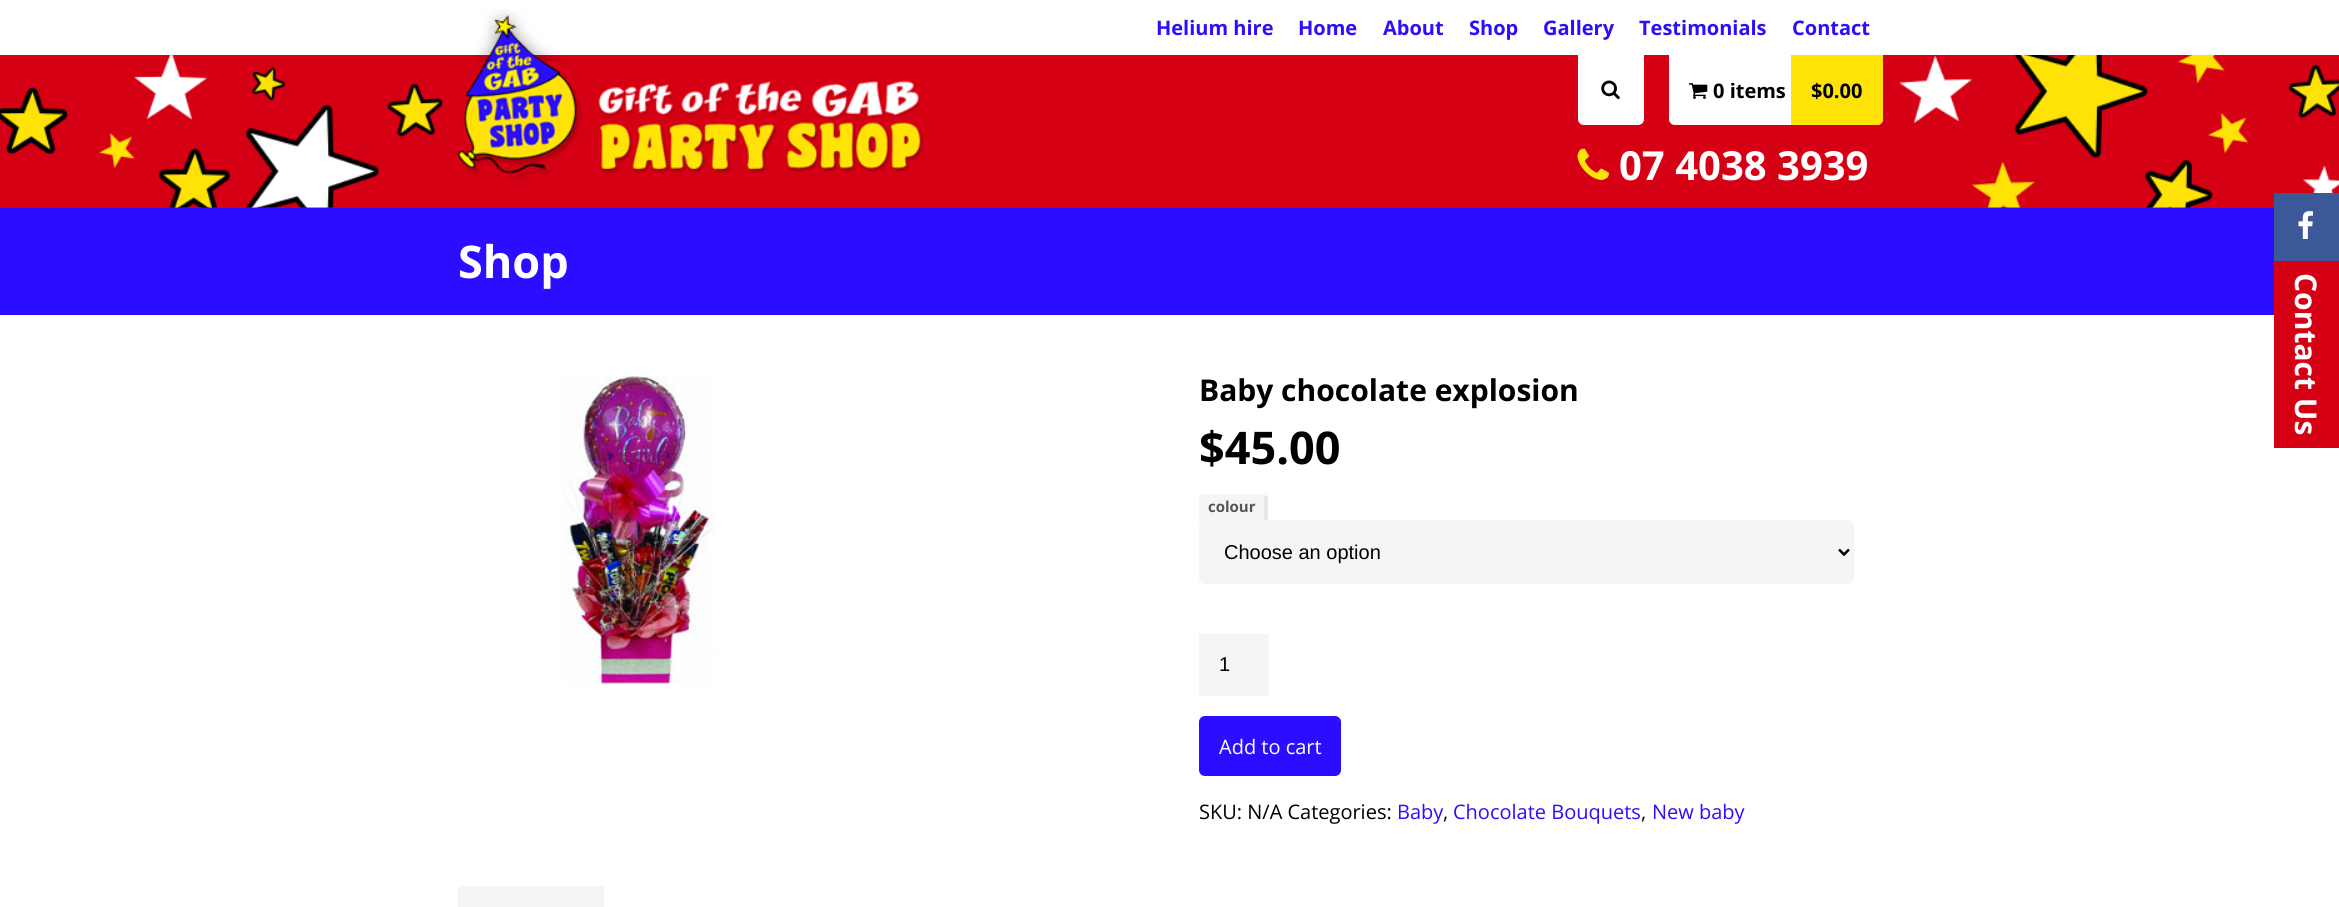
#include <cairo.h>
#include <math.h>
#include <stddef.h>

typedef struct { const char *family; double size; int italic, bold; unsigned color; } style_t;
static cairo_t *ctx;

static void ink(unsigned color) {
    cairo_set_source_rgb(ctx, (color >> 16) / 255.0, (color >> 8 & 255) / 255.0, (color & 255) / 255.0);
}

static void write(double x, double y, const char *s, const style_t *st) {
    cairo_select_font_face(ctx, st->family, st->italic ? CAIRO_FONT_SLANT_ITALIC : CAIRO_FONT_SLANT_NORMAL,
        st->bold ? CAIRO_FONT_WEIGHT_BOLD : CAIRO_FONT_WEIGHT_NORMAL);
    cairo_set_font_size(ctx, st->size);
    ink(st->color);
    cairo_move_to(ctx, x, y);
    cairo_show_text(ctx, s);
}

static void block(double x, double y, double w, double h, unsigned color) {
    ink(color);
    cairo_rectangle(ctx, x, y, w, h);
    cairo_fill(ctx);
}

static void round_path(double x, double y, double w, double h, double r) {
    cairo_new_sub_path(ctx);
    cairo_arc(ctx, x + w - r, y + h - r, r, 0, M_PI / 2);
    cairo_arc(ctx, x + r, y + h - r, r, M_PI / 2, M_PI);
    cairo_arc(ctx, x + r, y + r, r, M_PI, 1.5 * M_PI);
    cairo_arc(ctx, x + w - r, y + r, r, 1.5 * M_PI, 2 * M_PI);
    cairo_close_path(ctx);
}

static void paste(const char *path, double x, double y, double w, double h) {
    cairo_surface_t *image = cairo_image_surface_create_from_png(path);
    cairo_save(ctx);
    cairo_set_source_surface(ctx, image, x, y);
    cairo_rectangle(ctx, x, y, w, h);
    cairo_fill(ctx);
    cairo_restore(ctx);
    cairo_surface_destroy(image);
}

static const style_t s1 = {"Open Sans", 20, 0, 1, 0x2b0eff};
static const style_t s2 = {"Open Sans", 20, 0, 1, 0x000000};
static const style_t s3 = {"Open Sans", 40, 0, 1, 0xffffff};
static const style_t s4 = {"Open Sans", 45, 0, 1, 0xffffff};
static const style_t s5 = {"Open Sans", 30, 0, 1, 0x000000};
static const style_t s6 = {"Open Sans", 45, 0, 1, 0x000000};
static const style_t s7 = {"Open Sans", 15, 0, 1, 0x565656};
static const style_t s8 = {"Liberation Sans", 20, 0, 0, 0x000000};
static const style_t s9 = {"Open Sans", 20, 0, 0, 0xffffff};
static const style_t s10 = {"Open Sans", 20, 0, 0, 0x000000};
static const style_t s11 = {"Open Sans", 20, 0, 0, 0x2b0eff};
static const style_t s12 = {"Open Sans", 30, 0, 1, 0xffffff};

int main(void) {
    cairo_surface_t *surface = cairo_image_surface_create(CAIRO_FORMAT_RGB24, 2339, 907);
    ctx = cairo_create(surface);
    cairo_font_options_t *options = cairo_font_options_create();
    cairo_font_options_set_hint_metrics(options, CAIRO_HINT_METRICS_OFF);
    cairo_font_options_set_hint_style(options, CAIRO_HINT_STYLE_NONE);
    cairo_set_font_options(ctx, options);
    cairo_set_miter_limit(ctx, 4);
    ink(0xffffff);
    cairo_paint(ctx);
    write(1156, 35, "Helium hire", &s1);
    write(1298, 35, "Home", &s1);
    write(1383, 35, "About", &s1);
    write(1469, 35, "Shop", &s1);
    write(1543, 35, "Gallery", &s1);
    write(1639, 35, "Testimonials", &s1);
    write(1792, 35, "Contact", &s1);
    block(0, 55, 2339, 153, 0xd50013);
    paste("pic1.png", 0, 55, 2339, 153);
    paste("pic2.png", 457, 9, 467, 171);
    ink(0xffffff);
    cairo_new_path(ctx);
    cairo_move_to(ctx, 1578, 55);
    cairo_line_to(ctx, 1644, 55);
    cairo_line_to(ctx, 1644, 119);
    cairo_curve_to(ctx, 1644, 122.5, 1641.5, 125, 1638, 125);
    cairo_line_to(ctx, 1584, 125);
    cairo_curve_to(ctx, 1580.5, 125, 1578, 122.5, 1578, 119);
    cairo_close_path(ctx);
    cairo_fill(ctx);
    paste("pic3.png", 1601, 80, 19, 20);
    cairo_new_path(ctx);
    cairo_move_to(ctx, 1669, 55);
    cairo_line_to(ctx, 1883, 55);
    cairo_line_to(ctx, 1883, 119);
    cairo_curve_to(ctx, 1883, 122.5, 1880.5, 125, 1877, 125);
    cairo_line_to(ctx, 1675, 125);
    cairo_curve_to(ctx, 1671.5, 125, 1669, 122.5, 1669, 119);
    cairo_close_path(ctx);
    cairo_fill(ctx);
    paste("pic4.png", 1688, 83, 20, 16);
    write(1713, 98, "0 items", &s2);
    ink(0xffe306);
    cairo_new_path(ctx);
    cairo_move_to(ctx, 1791, 55);
    cairo_line_to(ctx, 1883, 55);
    cairo_line_to(ctx, 1883, 119);
    cairo_curve_to(ctx, 1883, 122.5, 1880.5, 125, 1877, 125);
    cairo_line_to(ctx, 1791, 125);
    cairo_close_path(ctx);
    cairo_fill(ctx);
    write(1811, 98, "$0.00", &s2);
    paste("pic5.png", 1577, 148, 32, 32);
    write(1619, 180, "07 4038 3939", &s3);
    block(0, 208, 2274, 107, 0x2b0eff);
    write(458, 278, "Shop", &s4);
    paste("pic6.png", 561, 375, 155, 310);
    write(1199, 401, "Baby chocolate explosion", &s5);
    write(1199, 464, "$45.00", &s6);
    ink(0xf5f5f5);
    round_path(1199, 494, 69, 29, 4);
    cairo_fill(ctx);
    write(1208, 512, "colour", &s7);
    block(1264, 496, 4, 25, 0xe8e8e8);
    ink(0xf5f5f5);
    round_path(1199, 520, 655, 64, 6);
    cairo_fill(ctx);
    cairo_new_path(ctx);
    cairo_move_to(ctx, 1839, 549.5);
    cairo_line_to(ctx, 1844, 554.5);
    cairo_line_to(ctx, 1849, 549.5);
    ink(0x000000);
    cairo_set_line_width(ctx, 2.5);
    cairo_stroke(ctx);
    write(1224, 559, "Choose an option", &s8);
    block(1199, 634, 70, 62, 0xf5f5f5);
    write(1219, 671, "1", &s8);
    ink(0x2b0eff);
    round_path(1199, 716, 142, 60, 6);
    cairo_fill(ctx);
    write(1219, 754, "Add to cart", &s9);
    write(1199, 819, "SKU: N/A Categories:", &s10);
    write(1397, 819, "Baby", &s11);
    write(1443, 819, ",", &s10);
    write(1453, 819, "Chocolate Bouquets", &s11);
    write(1641, 819, ",", &s10);
    write(1652, 819, "New baby", &s11);
    block(458, 886, 146, 21, 0xf5f5f5);
    block(2274, 193, 65, 68, 0x3b5998);
    paste("pic7.png", 2298, 211, 15, 28);
    block(2274, 261, 65, 187, 0xd50013);
    cairo_save(ctx);
    cairo_translate(ctx, 2295, 273);
    cairo_rotate(ctx, 90 * M_PI / 180);
    write(0, 0, "Contact Us", &s12);
    cairo_restore(ctx);
    cairo_surface_write_to_png(surface, "screenshot.png");
    cairo_font_options_destroy(options);
    cairo_destroy(ctx);
    cairo_surface_destroy(surface);
    return 0;
}
